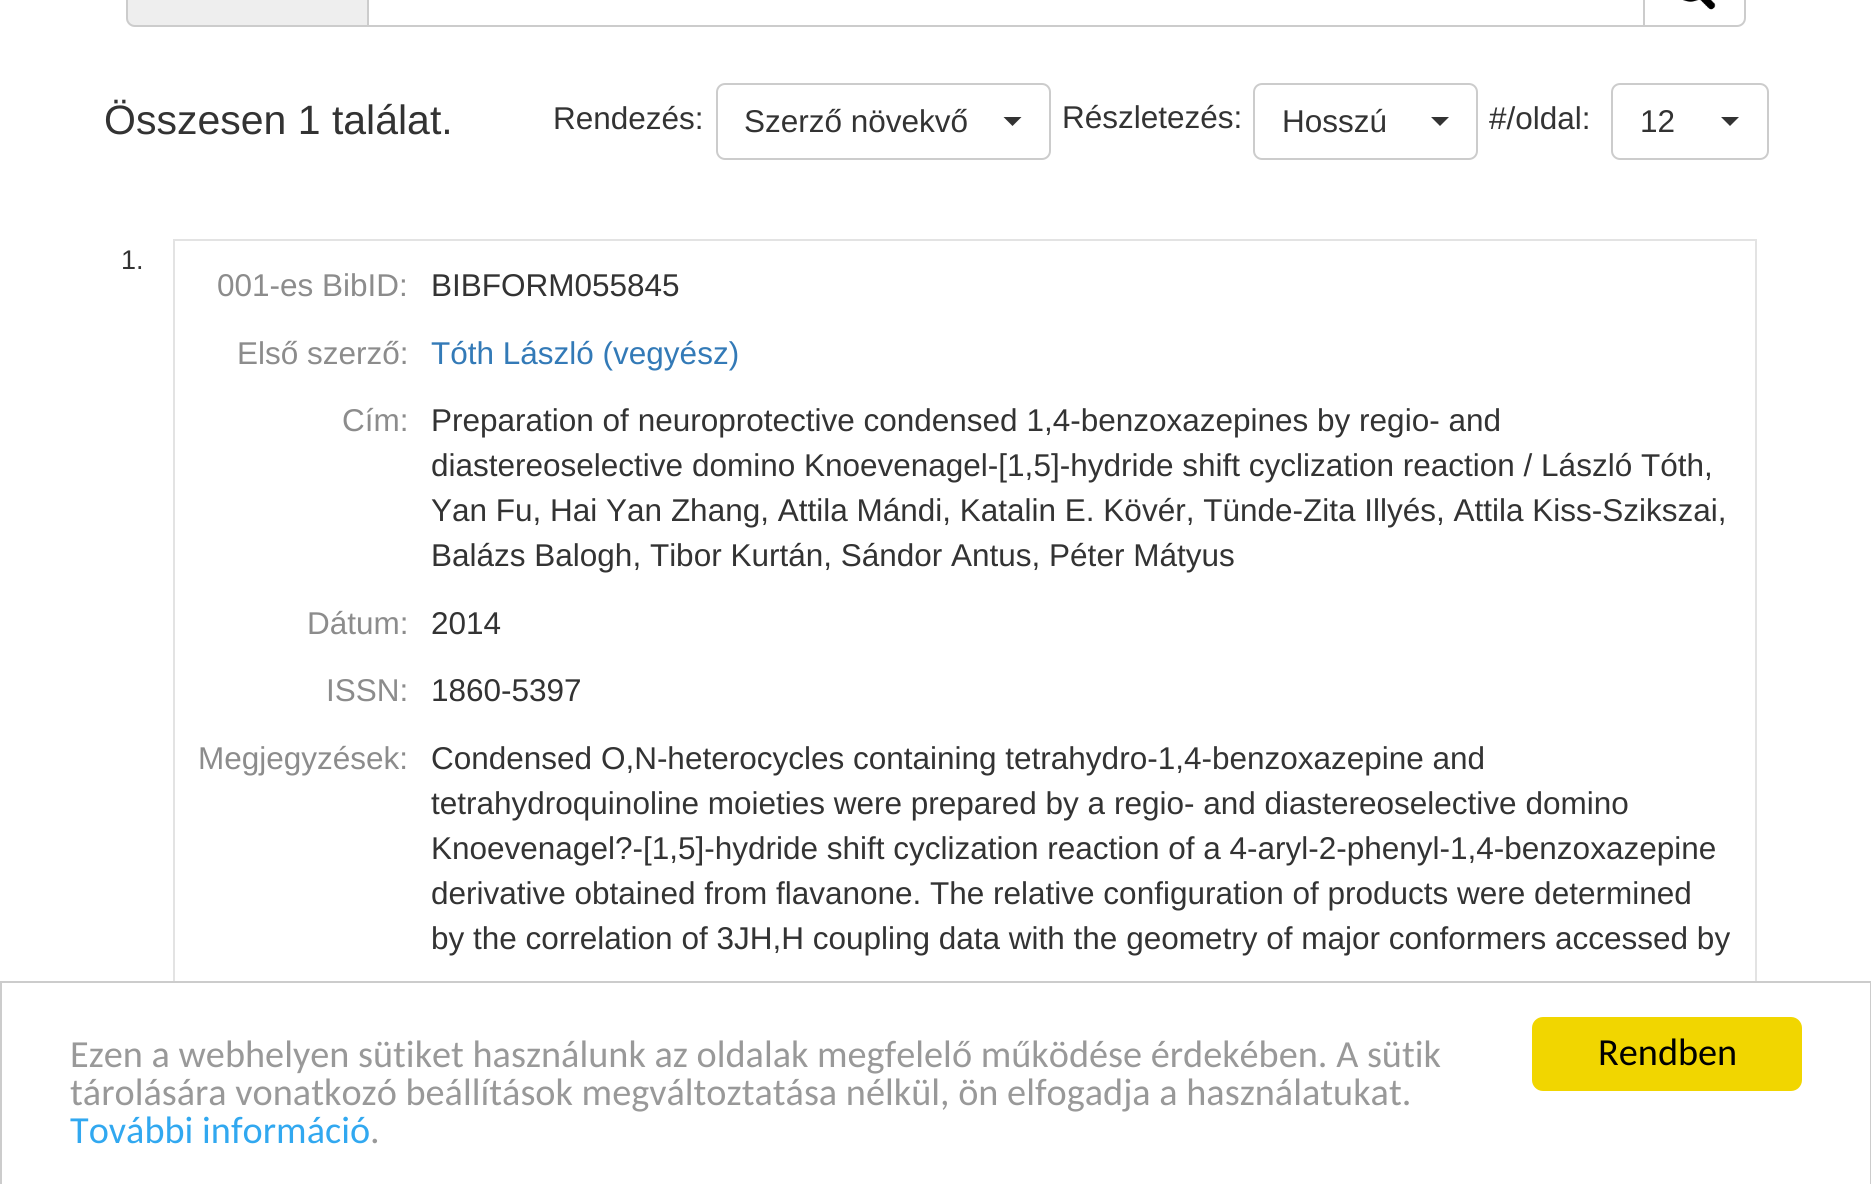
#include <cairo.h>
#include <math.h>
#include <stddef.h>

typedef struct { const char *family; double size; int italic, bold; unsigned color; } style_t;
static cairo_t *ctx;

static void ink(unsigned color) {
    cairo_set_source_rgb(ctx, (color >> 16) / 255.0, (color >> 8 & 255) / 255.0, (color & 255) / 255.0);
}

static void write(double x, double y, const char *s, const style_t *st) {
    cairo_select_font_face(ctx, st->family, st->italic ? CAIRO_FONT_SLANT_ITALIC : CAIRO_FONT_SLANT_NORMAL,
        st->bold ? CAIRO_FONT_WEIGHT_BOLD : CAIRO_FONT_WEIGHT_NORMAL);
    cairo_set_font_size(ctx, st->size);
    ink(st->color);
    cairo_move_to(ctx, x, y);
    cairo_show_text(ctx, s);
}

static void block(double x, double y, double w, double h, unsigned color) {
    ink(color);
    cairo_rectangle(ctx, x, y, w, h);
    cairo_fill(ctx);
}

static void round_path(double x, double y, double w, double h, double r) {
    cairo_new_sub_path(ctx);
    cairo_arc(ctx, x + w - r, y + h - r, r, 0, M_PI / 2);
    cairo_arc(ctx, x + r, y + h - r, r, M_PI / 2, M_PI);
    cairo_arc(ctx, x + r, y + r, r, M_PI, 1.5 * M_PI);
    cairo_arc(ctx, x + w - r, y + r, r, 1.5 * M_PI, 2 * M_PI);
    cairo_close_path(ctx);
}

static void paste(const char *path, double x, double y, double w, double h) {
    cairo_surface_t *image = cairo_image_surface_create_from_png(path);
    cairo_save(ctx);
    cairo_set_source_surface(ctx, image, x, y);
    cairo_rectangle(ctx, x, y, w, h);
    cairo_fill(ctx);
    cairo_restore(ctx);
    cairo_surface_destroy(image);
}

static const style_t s1 = {"Liberation Sans", 41, 0, 0, 0x333333};
static const style_t s2 = {"Liberation Sans", 31.5, 0, 0, 0x333333};
static const style_t s3 = {"Liberation Sans", 27, 0, 0, 0x333333};
static const style_t s4 = {"Liberation Sans", 31.5, 0, 0, 0x8c8c8c};
static const style_t s5 = {"Liberation Sans", 31.5, 0, 0, 0x337ab7};
static const style_t s6 = {"Carlito", 38.25, 0, 0, 0x999999};
static const style_t s7 = {"Carlito", 38.25, 0, 0, 0x31a8f0};
static const style_t s8 = {"Carlito", 38.25, 0, 0, 0x000000};

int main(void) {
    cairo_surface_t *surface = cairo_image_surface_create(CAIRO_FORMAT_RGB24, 1871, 1184);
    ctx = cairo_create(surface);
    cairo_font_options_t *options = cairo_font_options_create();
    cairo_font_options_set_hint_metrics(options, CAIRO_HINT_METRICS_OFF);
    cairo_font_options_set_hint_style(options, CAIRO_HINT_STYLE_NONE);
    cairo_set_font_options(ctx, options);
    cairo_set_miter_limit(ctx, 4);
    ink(0xffffff);
    cairo_paint(ctx);
    ink(0xeeeeee);
    cairo_new_path(ctx);
    cairo_move_to(ctx, 135, -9);
    cairo_line_to(ctx, 367, -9);
    cairo_line_to(ctx, 367, 27);
    cairo_line_to(ctx, 135, 27);
    cairo_curve_to(ctx, 130, 27, 126, 23, 126, 18);
    cairo_line_to(ctx, 126, 0);
    cairo_curve_to(ctx, 126, -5, 130, -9, 135, -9);
    cairo_close_path(ctx);
    cairo_fill(ctx);
    ink(0xcccccc);
    cairo_set_fill_rule(ctx, CAIRO_FILL_RULE_EVEN_ODD);
    cairo_new_path(ctx);
    cairo_move_to(ctx, 135, -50);
    cairo_line_to(ctx, 367, -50);
    cairo_line_to(ctx, 367, 27);
    cairo_line_to(ctx, 135, 27);
    cairo_curve_to(ctx, 130, 27, 126, 23, 126, 18);
    cairo_line_to(ctx, 126, -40);
    cairo_curve_to(ctx, 126, -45, 130, -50, 135, -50);
    cairo_close_path(ctx);
    cairo_move_to(ctx, 135, -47);
    cairo_line_to(ctx, 367, -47);
    cairo_line_to(ctx, 367, 25);
    cairo_line_to(ctx, 135, 25);
    cairo_curve_to(ctx, 131, 25, 128, 22, 128, 18);
    cairo_line_to(ctx, 128, -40);
    cairo_curve_to(ctx, 128, -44, 131, -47, 135, -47);
    cairo_close_path(ctx);
    cairo_fill(ctx);
    cairo_rectangle(ctx, 368, -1, 1276, 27);
    cairo_stroke(ctx);
    ink(0xffffff);
    cairo_new_path(ctx);
    cairo_move_to(ctx, 1644, -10);
    cairo_line_to(ctx, 1737, -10);
    cairo_curve_to(ctx, 1741.5, -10, 1745, -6.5, 1745, -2);
    cairo_line_to(ctx, 1745, 18);
    cairo_curve_to(ctx, 1745, 22.5, 1741.5, 26, 1737, 26);
    cairo_line_to(ctx, 1644, 26);
    cairo_close_path(ctx);
    cairo_fill_preserve(ctx);
    ink(0xcccccc);
    cairo_stroke(ctx);
    paste("pic1.png", 1683, 0, 33, 10);
    write(104, 134, "Összesen 1 találat.", &s1);
    write(553, 129, "Rendezés:", &s2);
    round_path(717, 84, 333, 75, 8);
    ink(0xcccccc);
    cairo_stroke(ctx);
    write(744, 132, "Szerző növekvő", &s2);
    cairo_set_fill_rule(ctx, CAIRO_FILL_RULE_WINDING);
    cairo_new_path(ctx);
    cairo_move_to(ctx, 1003.5, 117);
    cairo_line_to(ctx, 1021.5, 117);
    cairo_line_to(ctx, 1012.5, 126);
    cairo_close_path(ctx);
    cairo_fill(ctx);
    write(1062, 128, "Részletezés:", &s2);
    round_path(1254, 84, 223, 75, 8);
    ink(0xcccccc);
    cairo_stroke(ctx);
    write(1282, 132, "Hosszú", &s2);
    cairo_new_path(ctx);
    cairo_move_to(ctx, 1431, 117);
    cairo_line_to(ctx, 1449, 117);
    cairo_line_to(ctx, 1440, 126);
    cairo_close_path(ctx);
    cairo_fill(ctx);
    write(1489, 129, "#/oldal:", &s2);
    round_path(1612, 84, 156, 75, 8);
    ink(0xcccccc);
    cairo_stroke(ctx);
    write(1640, 132, "12", &s2);
    cairo_new_path(ctx);
    cairo_move_to(ctx, 1721, 117);
    cairo_line_to(ctx, 1739, 117);
    cairo_line_to(ctx, 1730, 126);
    cairo_close_path(ctx);
    cairo_fill(ctx);
    write(121, 269, "1.", &s3);
    block(173, 239, 1584, 2, 0xe3e3e3);
    block(1755, 239, 2, 742, 0xe3e3e3);
    block(173, 239, 2, 742, 0xe3e3e3);
    write(217, 296, "001-es BibID:", &s4);
    write(431, 296, "BIBFORM055845", &s2);
    write(237, 364, "Első szerző:", &s4);
    write(431, 364, "Tóth László (vegyész)", &s5);
    write(342, 431, "Cím:", &s4);
    write(431, 431, "Preparation of neuroprotective condensed 1,4-benzoxazepines by regio- and", &s2);
    write(431, 476, "diastereoselective domino Knoevenagel-[1,5]-hydride shift cyclization reaction / László Tóth,", &s2);
    write(431, 521, "Yan Fu, Hai Yan Zhang, Attila Mándi, Katalin E. Kövér, Tünde-Zita Illyés, Attila Kiss-Szikszai,", &s2);
    write(431, 566, "Balázs Balogh, Tibor Kurtán, Sándor Antus, Péter Mátyus", &s2);
    write(307, 634, "Dátum:", &s4);
    write(431, 634, "2014", &s2);
    write(326, 701, "ISSN:", &s4);
    write(431, 701, "1860-5397", &s2);
    write(198, 769, "Megjegyzések:", &s4);
    write(431, 769, "Condensed O,N-heterocycles containing tetrahydro-1,4-benzoxazepine and", &s2);
    write(431, 814, "tetrahydroquinoline moieties were prepared by a regio- and diastereoselective domino", &s2);
    write(431, 859, "Knoevenagel?-[1,5]-hydride shift cyclization reaction of a 4-aryl-2-phenyl-1,4-benzoxazepine", &s2);
    write(431, 904, "derivative obtained from flavanone. The relative configuration of products were determined", &s2);
    write(431, 949, "by the correlation of 3JH,H coupling data with the geometry of major conformers accessed by", &s2);
    cairo_rectangle(ctx, 1, 982, 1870, 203);
    ink(0xcccccc);
    cairo_stroke(ctx);
    write(70, 1067, "Ezen a webhelyen sütiket használunk az oldalak megfelelő működése érdekében. A sütik", &s6);
    write(70, 1105, "tárolására vonatkozó beállítások megváltoztatása nélkül, ön elfogadja a használatukat.", &s6);
    write(70, 1143, "További információ", &s7);
    write(370, 1143, ".", &s6);
    ink(0xf1d600);
    round_path(1532, 1017, 270, 74, 11);
    cairo_fill(ctx);
    write(1598, 1065, "Rendben", &s8);
    cairo_surface_write_to_png(surface, "screenshot.png");
    cairo_font_options_destroy(options);
    cairo_destroy(ctx);
    cairo_surface_destroy(surface);
    return 0;
}
